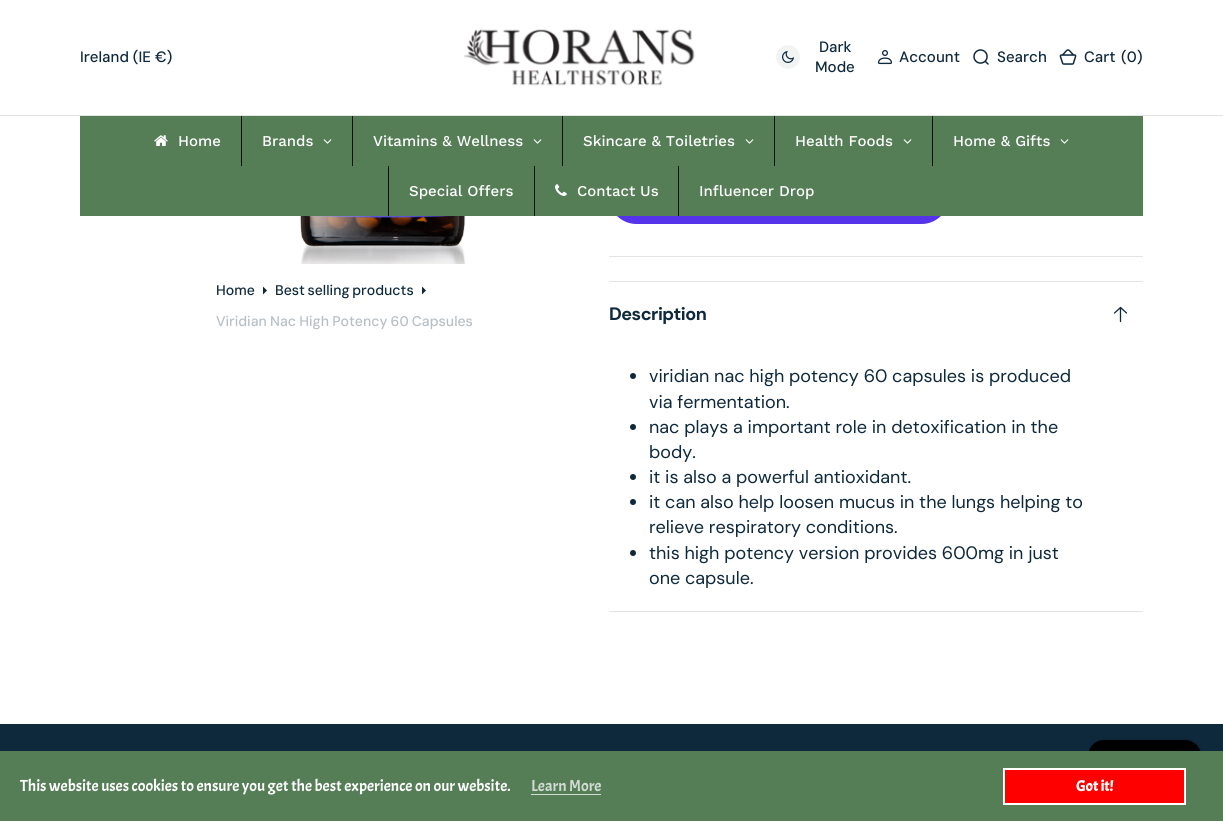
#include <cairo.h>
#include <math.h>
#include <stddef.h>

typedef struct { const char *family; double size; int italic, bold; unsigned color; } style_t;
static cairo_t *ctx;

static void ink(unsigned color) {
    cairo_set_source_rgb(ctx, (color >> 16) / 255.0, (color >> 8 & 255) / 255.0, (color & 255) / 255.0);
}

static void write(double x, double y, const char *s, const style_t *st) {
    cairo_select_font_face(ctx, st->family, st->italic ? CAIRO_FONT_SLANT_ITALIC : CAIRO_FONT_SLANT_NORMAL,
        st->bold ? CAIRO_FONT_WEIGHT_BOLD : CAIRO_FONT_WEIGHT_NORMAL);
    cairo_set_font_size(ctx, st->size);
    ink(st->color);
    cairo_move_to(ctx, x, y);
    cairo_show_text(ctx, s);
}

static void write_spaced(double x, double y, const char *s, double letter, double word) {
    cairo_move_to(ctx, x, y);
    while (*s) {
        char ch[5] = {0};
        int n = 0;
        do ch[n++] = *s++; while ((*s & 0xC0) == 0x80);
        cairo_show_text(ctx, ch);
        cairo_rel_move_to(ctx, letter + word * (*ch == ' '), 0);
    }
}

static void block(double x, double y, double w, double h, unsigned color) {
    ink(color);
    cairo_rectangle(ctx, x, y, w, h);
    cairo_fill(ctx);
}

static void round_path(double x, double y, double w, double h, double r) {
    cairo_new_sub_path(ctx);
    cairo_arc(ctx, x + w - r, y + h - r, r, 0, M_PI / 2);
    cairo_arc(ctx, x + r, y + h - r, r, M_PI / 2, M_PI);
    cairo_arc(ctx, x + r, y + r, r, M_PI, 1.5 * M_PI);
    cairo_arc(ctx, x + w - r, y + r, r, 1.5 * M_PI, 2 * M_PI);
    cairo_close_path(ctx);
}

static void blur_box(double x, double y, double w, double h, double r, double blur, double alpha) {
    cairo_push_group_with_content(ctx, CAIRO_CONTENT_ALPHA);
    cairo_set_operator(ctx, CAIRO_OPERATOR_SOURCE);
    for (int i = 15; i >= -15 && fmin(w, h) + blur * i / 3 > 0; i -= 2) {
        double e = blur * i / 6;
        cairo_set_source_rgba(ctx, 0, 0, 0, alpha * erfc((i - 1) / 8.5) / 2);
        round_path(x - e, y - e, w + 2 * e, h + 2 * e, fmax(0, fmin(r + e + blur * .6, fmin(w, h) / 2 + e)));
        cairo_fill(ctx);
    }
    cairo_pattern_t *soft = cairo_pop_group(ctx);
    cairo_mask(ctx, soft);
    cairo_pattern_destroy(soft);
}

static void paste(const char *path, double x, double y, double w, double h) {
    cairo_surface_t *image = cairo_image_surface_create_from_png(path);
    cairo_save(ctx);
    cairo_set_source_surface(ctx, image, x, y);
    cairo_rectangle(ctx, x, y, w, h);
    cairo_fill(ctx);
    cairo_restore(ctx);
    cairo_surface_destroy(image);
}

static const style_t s1 = {"DM Sans Medium", 15, 0, 0, 0x0e283c};
static const style_t s2 = {"Work Sans Medium", 15, 0, 0, 0xffffff};
static const style_t s3 = {"DM Sans Medium", 14, 0, 0, 0x0e283c};
static const style_t s4 = {"DM Sans", 18, 0, 0, 0x0e283c};
static const style_t s5 = {"Acme", 16, 0, 0, 0xffffff};
static const style_t s6 = {"Acme", 16, 0, 0, 0xd3dcd4};
static const style_t s7 = {"Acme", 15, 0, 1, 0xffffff};

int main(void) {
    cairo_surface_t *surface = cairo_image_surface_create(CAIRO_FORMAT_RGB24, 1223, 821);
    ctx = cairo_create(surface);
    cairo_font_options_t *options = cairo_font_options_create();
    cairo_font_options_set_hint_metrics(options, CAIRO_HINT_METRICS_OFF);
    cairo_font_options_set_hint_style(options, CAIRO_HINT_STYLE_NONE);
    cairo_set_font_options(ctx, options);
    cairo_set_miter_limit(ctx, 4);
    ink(0xffffff);
    cairo_paint(ctx);
    ink(0x5433eb);
    round_path(609, 169, 340, 55, 27.5);
    cairo_fill(ctx);
    block(609, 169, 340, 47, 0xffffff);
    block(0, 115, 1223, 1, 0xe2e5e8);
    write(80, 62, "Ireland (IE €)", &s1);
    paste("pic1.png", 464, 29, 231, 57);
    ink(0xf2f4f4);
    cairo_arc(ctx, 788, 57, 12, 0, 2 * M_PI);
    cairo_fill(ctx);
    paste("pic2.png", 782, 51, 12, 12);
    write(819, 52, "Dark", &s1);
    write(815, 72, "Mode", &s1);
    paste("pic3.png", 878, 50, 14, 15);
    write(899, 62, "Account", &s1);
    paste("pic4.png", 973, 49, 16, 16);
    write(997, 62, "Search", &s1);
    paste("pic5.png", 1059, 49, 18, 16);
    write(1084, 62, "Cart", &s1);
    write(1121, 62, "(0)", &s1);
    block(80, 116, 1063, 100, 0x557e57);
    paste("pic6.png", 154, 135, 14, 11);
    write(178, 146, "Home", &s2);
    block(241, 116, 1, 50, 0x0f0f0f);
    write(262, 146, "Brands", &s2);
    paste("pic7.png", 323, 139, 9, 5);
    block(352, 116, 1, 50, 0x0f0f0f);
    write(373, 146, "Vitamins & Wellness", &s2);
    paste("pic7.png", 533, 139, 9, 5);
    block(562, 116, 1, 50, 0x0f0f0f);
    write(583, 146, "Skincare & Toiletries", &s2);
    paste("pic7.png", 745, 139, 9, 5);
    block(774, 116, 1, 50, 0x0f0f0f);
    write(795, 146, "Health Foods", &s2);
    paste("pic7.png", 903, 139, 9, 5);
    block(932, 116, 1, 50, 0x0f0f0f);
    write(953, 146, "Home & Gifts", &s2);
    paste("pic7.png", 1060, 139, 9, 5);
    block(388, 166, 1, 50, 0x0f0f0f);
    write(409, 196, "Special Offers", &s2);
    block(534, 166, 1, 50, 0x0f0f0f);
    paste("pic8.png", 555, 184, 12, 12);
    write(577, 196, "Contact Us", &s2);
    block(678, 166, 1, 50, 0x0f0f0f);
    write(699, 196, "Influencer Drop", &s2);
    paste("pic9.png", 299, 216, 167, 48);
    write(216, 295, "Home", &s3);
    cairo_new_path(ctx);
    cairo_move_to(ctx, 267, 290.5);
    cairo_line_to(ctx, 263, 294.5);
    cairo_line_to(ctx, 263, 286.5);
    cairo_close_path(ctx);
    cairo_fill(ctx);
    write_spaced(275, 295, "Best selling products", 0, -1);
    cairo_new_path(ctx);
    cairo_move_to(ctx, 426, 290.5);
    cairo_line_to(ctx, 422, 294.5);
    cairo_line_to(ctx, 422, 286.5);
    cairo_close_path(ctx);
    cairo_fill(ctx);
    ink(0xb7bfc5);
    write_spaced(216, 326, "Viridian Nac High Potency 60 Capsules", 0, -0.5);
    block(609, 256, 534, 1, 0xe2e5e8);
    block(609, 281, 534, 1, 0xe2e5e8);
    block(609, 611, 534, 1, 0xe2e5e8);
    cairo_select_font_face(ctx, "DM Sans", CAIRO_FONT_SLANT_NORMAL, CAIRO_FONT_WEIGHT_BOLD);
    cairo_set_font_size(ctx, 18);
    ink(0x0e283c);
    write_spaced(609, 320, "Description", -0.5, 0);
    cairo_new_path(ctx);
    cairo_move_to(ctx, 1114.5, 313);
    cairo_line_to(ctx, 1120.5, 307.5);
    cairo_move_to(ctx, 1120.5, 307.5);
    cairo_line_to(ctx, 1126.5, 313);
    cairo_move_to(ctx, 1120.5, 307.5);
    cairo_line_to(ctx, 1120.5, 321.5);
    cairo_set_line_width(ctx, 1.3);
    cairo_set_line_cap(ctx, CAIRO_LINE_CAP_ROUND);
    cairo_set_line_join(ctx, CAIRO_LINE_JOIN_ROUND);
    cairo_stroke(ctx);
    cairo_arc(ctx, 633, 376, 3, 0, 2 * M_PI);
    cairo_fill(ctx);
    write(649, 382, "viridian nac high potency 60 capsules is produced", &s4);
    write(649, 408, "via fermentation.", &s4);
    cairo_new_path(ctx);
    cairo_arc(ctx, 633, 427, 3, 0, 2 * M_PI);
    cairo_fill(ctx);
    write(649, 433, "nac plays a important role in detoxification in the", &s4);
    write(649, 458, "body.", &s4);
    cairo_new_path(ctx);
    cairo_arc(ctx, 633, 477, 3, 0, 2 * M_PI);
    cairo_fill(ctx);
    write(649, 483, "it is also a powerful antioxidant.", &s4);
    cairo_new_path(ctx);
    cairo_arc(ctx, 633, 502, 3, 0, 2 * M_PI);
    cairo_fill(ctx);
    write(649, 508, "it can also help loosen mucus in the lungs helping to", &s4);
    write(649, 533, "relieve respiratory conditions.", &s4);
    cairo_new_path(ctx);
    cairo_arc(ctx, 633, 553, 3, 0, 2 * M_PI);
    cairo_fill(ctx);
    write(649, 559, "this high potency version provides 600mg in just", &s4);
    write(649, 584, "one capsule.", &s4);
    block(0, 724, 1223, 27, 0x0e283c);
    ink(0x000000);
    blur_box(1088, 740, 113, 60, 16, 2.5, 0.15);
    ink(0x000000);
    round_path(1088, 740, 113, 60, 16);
    cairo_fill(ctx);
    block(0, 751, 1223, 70, 0x557e57);
    write(20, 791, "This website uses cookies to ensure you get the best experience on our website.", &s5);
    write(531, 791, "Learn More", &s6);
    block(531, 794, 70, 1, 0xd3dcd4);
    ink(0xff0000);
    cairo_rectangle(ctx, 1004, 769, 181, 35);
    cairo_fill_preserve(ctx);
    ink(0xffffff);
    cairo_set_line_width(ctx, 2);
    cairo_set_line_cap(ctx, CAIRO_LINE_CAP_BUTT);
    cairo_set_line_join(ctx, CAIRO_LINE_JOIN_MITER);
    cairo_stroke(ctx);
    write(1076, 791, "Got it!", &s7);
    cairo_surface_write_to_png(surface, "screenshot.png");
    cairo_font_options_destroy(options);
    cairo_destroy(ctx);
    cairo_surface_destroy(surface);
    return 0;
}
